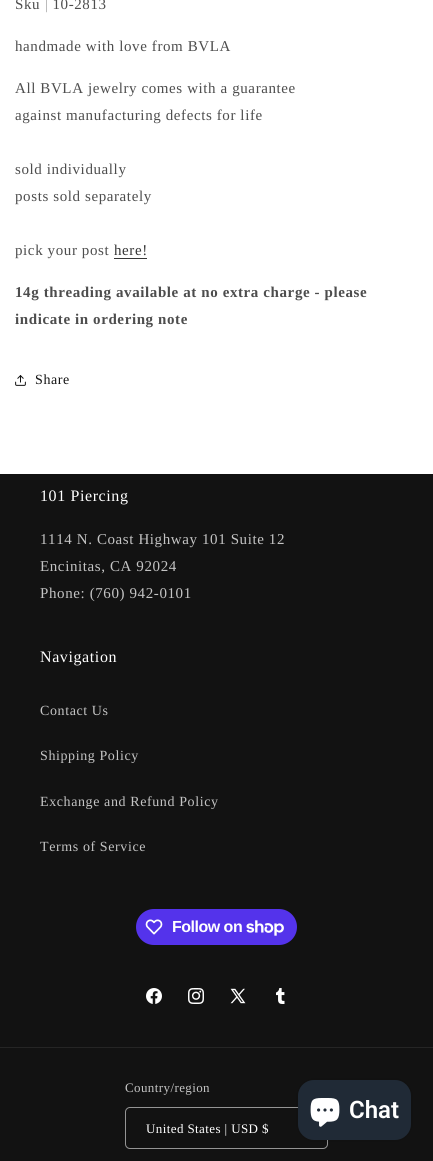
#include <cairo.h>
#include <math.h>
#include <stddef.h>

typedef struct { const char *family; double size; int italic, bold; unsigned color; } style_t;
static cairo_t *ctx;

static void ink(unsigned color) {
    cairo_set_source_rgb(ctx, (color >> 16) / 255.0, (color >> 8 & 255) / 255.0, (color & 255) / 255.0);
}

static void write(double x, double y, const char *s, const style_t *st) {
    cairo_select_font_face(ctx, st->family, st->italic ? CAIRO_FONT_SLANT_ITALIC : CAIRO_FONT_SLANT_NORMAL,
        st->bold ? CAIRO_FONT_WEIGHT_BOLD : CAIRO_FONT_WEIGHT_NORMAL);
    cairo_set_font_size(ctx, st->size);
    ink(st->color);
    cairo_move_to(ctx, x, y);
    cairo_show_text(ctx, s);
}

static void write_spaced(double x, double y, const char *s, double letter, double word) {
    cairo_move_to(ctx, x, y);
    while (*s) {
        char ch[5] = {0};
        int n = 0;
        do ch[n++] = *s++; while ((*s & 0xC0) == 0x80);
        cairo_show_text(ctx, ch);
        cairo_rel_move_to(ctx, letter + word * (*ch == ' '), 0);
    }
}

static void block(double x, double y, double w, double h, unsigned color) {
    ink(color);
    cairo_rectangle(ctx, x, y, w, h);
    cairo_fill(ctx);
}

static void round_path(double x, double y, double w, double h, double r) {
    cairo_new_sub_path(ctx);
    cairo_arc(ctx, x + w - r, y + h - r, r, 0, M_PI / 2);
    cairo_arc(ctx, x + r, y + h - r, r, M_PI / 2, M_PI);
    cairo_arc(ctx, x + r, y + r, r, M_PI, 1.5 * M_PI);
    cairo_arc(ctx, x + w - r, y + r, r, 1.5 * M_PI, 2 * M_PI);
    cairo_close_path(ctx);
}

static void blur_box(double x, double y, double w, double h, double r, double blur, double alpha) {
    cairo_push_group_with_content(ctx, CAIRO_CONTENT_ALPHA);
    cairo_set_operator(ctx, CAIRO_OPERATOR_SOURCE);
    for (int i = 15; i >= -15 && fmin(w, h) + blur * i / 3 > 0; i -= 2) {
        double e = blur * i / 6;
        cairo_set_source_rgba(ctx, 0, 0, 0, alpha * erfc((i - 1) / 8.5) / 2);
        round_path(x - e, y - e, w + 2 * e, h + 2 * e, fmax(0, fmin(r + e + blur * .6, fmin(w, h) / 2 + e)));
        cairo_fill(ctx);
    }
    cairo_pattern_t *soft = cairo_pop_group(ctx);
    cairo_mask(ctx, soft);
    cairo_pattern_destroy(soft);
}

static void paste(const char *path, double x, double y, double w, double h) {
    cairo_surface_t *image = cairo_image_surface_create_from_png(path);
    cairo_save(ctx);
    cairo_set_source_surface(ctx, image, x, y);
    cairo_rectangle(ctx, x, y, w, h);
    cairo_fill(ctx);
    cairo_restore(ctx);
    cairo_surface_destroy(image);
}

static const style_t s1 = {"Roboto SemiBold", 24, 0, 0, 0xffffff};

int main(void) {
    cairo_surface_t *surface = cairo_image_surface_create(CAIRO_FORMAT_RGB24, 433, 1161);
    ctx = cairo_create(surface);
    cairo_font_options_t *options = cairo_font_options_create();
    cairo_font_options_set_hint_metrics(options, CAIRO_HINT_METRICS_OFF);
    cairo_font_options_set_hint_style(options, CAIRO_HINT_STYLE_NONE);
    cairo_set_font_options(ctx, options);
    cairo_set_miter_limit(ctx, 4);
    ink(0xffffff);
    cairo_paint(ctx);
    cairo_select_font_face(ctx, "Liberation Serif", CAIRO_FONT_SLANT_NORMAL, CAIRO_FONT_WEIGHT_NORMAL);
    cairo_set_font_size(ctx, 15);
    ink(0x4d4d4d);
    write_spaced(15, 9, "Sku | 10-2813", 0.6, 0);
    write_spaced(15, 51, "handmade with love from BVLA", 0.6, 0);
    write_spaced(15, 93, "All BVLA jewelry comes with a guarantee", 0.6, 0);
    write_spaced(15, 120, "against manufacturing defects for life", 0.6, 0);
    write_spaced(15, 174, "sold individually", 0.6, 0);
    write_spaced(15, 201, "posts sold separately", 0.6, 0);
    write_spaced(15, 255, "pick your post", 0.6, 0);
    ink(0x363636);
    write_spaced(114, 255, "here!", 0.6, 0);
    block(114, 258, 33, 1, 0x363636);
    cairo_select_font_face(ctx, "Liberation Serif", CAIRO_FONT_SLANT_NORMAL, CAIRO_FONT_WEIGHT_BOLD);
    ink(0x4d4d4d);
    write_spaced(15, 297, "14g threading available at no extra charge - please", 0.6, 0);
    write_spaced(15, 324, "indicate in ordering note", 0.6, 0);
    paste("pic1.png", 15, 375, 11, 11);
    cairo_select_font_face(ctx, "Liberation Serif", CAIRO_FONT_SLANT_NORMAL, CAIRO_FONT_WEIGHT_NORMAL);
    cairo_set_font_size(ctx, 14);
    ink(0x121212);
    write_spaced(35, 384, "Share", 0.6, 0);
    block(0, 474, 433, 687, 0x121212);
    cairo_set_font_size(ctx, 16);
    ink(0xffffff);
    write_spaced(40, 501, "101 Piercing", 0.6, 0);
    cairo_set_font_size(ctx, 15);
    ink(0xc4c4c4);
    write_spaced(40, 544, "1114 N. Coast Highway 101 Suite 12", 0.6, 0);
    write_spaced(40, 571, "Encinitas, CA 92024", 0.6, 0);
    write_spaced(40, 598, "Phone: (760) 942-0101", 0.6, 0);
    cairo_set_font_size(ctx, 16);
    ink(0xffffff);
    write_spaced(40, 662, "Navigation", 0.6, 0);
    cairo_set_font_size(ctx, 14);
    ink(0xc4c4c4);
    write_spaced(40, 715, "Contact Us", 0.6, 0);
    write_spaced(40, 760, "Shipping Policy", 0.6, 0);
    write_spaced(40, 806, "Exchange and Refund Policy", 0.6, 0);
    write_spaced(40, 851, "Terms of Service", 0.6, 0);
    ink(0x5433eb);
    round_path(136, 909, 161, 36, 18);
    cairo_fill(ctx);
    paste("pic2.png", 145, 919, 18, 16);
    cairo_select_font_face(ctx, "Liberation Sans", CAIRO_FONT_SLANT_NORMAL, CAIRO_FONT_WEIGHT_BOLD);
    cairo_set_font_size(ctx, 16);
    ink(0xffffff);
    write_spaced(172, 932, "Follow on", -0.5, 0);
    paste("pic3.png", 246, 920, 38, 16);
    paste("pic4.png", 146, 988, 16, 16);
    paste("pic5.png", 188, 988, 16, 16);
    paste("pic6.png", 230, 988, 16, 16);
    paste("pic7.png", 276, 988, 9, 16);
    block(0, 1047, 433, 1, 0x252525);
    cairo_select_font_face(ctx, "Liberation Serif", CAIRO_FONT_SLANT_NORMAL, CAIRO_FONT_WEIGHT_NORMAL);
    cairo_set_font_size(ctx, 13);
    ink(0xc4c4c4);
    write_spaced(125, 1092, "Country/region", 0.4, 0);
    round_path(125.5, 1107.5, 202, 41, 4.5);
    ink(0x949494);
    cairo_set_line_width(ctx, 1);
    cairo_stroke(ctx);
    ink(0xffffff);
    write_spaced(146, 1133, "United States | USD $", 0.4, 0);
    ink(0x000000);
    blur_box(298, 1080, 113, 60, 16, 2.5, 0.15);
    ink(0x202a36);
    round_path(298, 1080, 113, 60, 16);
    cairo_fill(ctx);
    paste("pic8.png", 310, 1098, 30, 29);
    write(349, 1118, "Chat", &s1);
    cairo_surface_write_to_png(surface, "screenshot.png");
    cairo_font_options_destroy(options);
    cairo_destroy(ctx);
    cairo_surface_destroy(surface);
    return 0;
}
